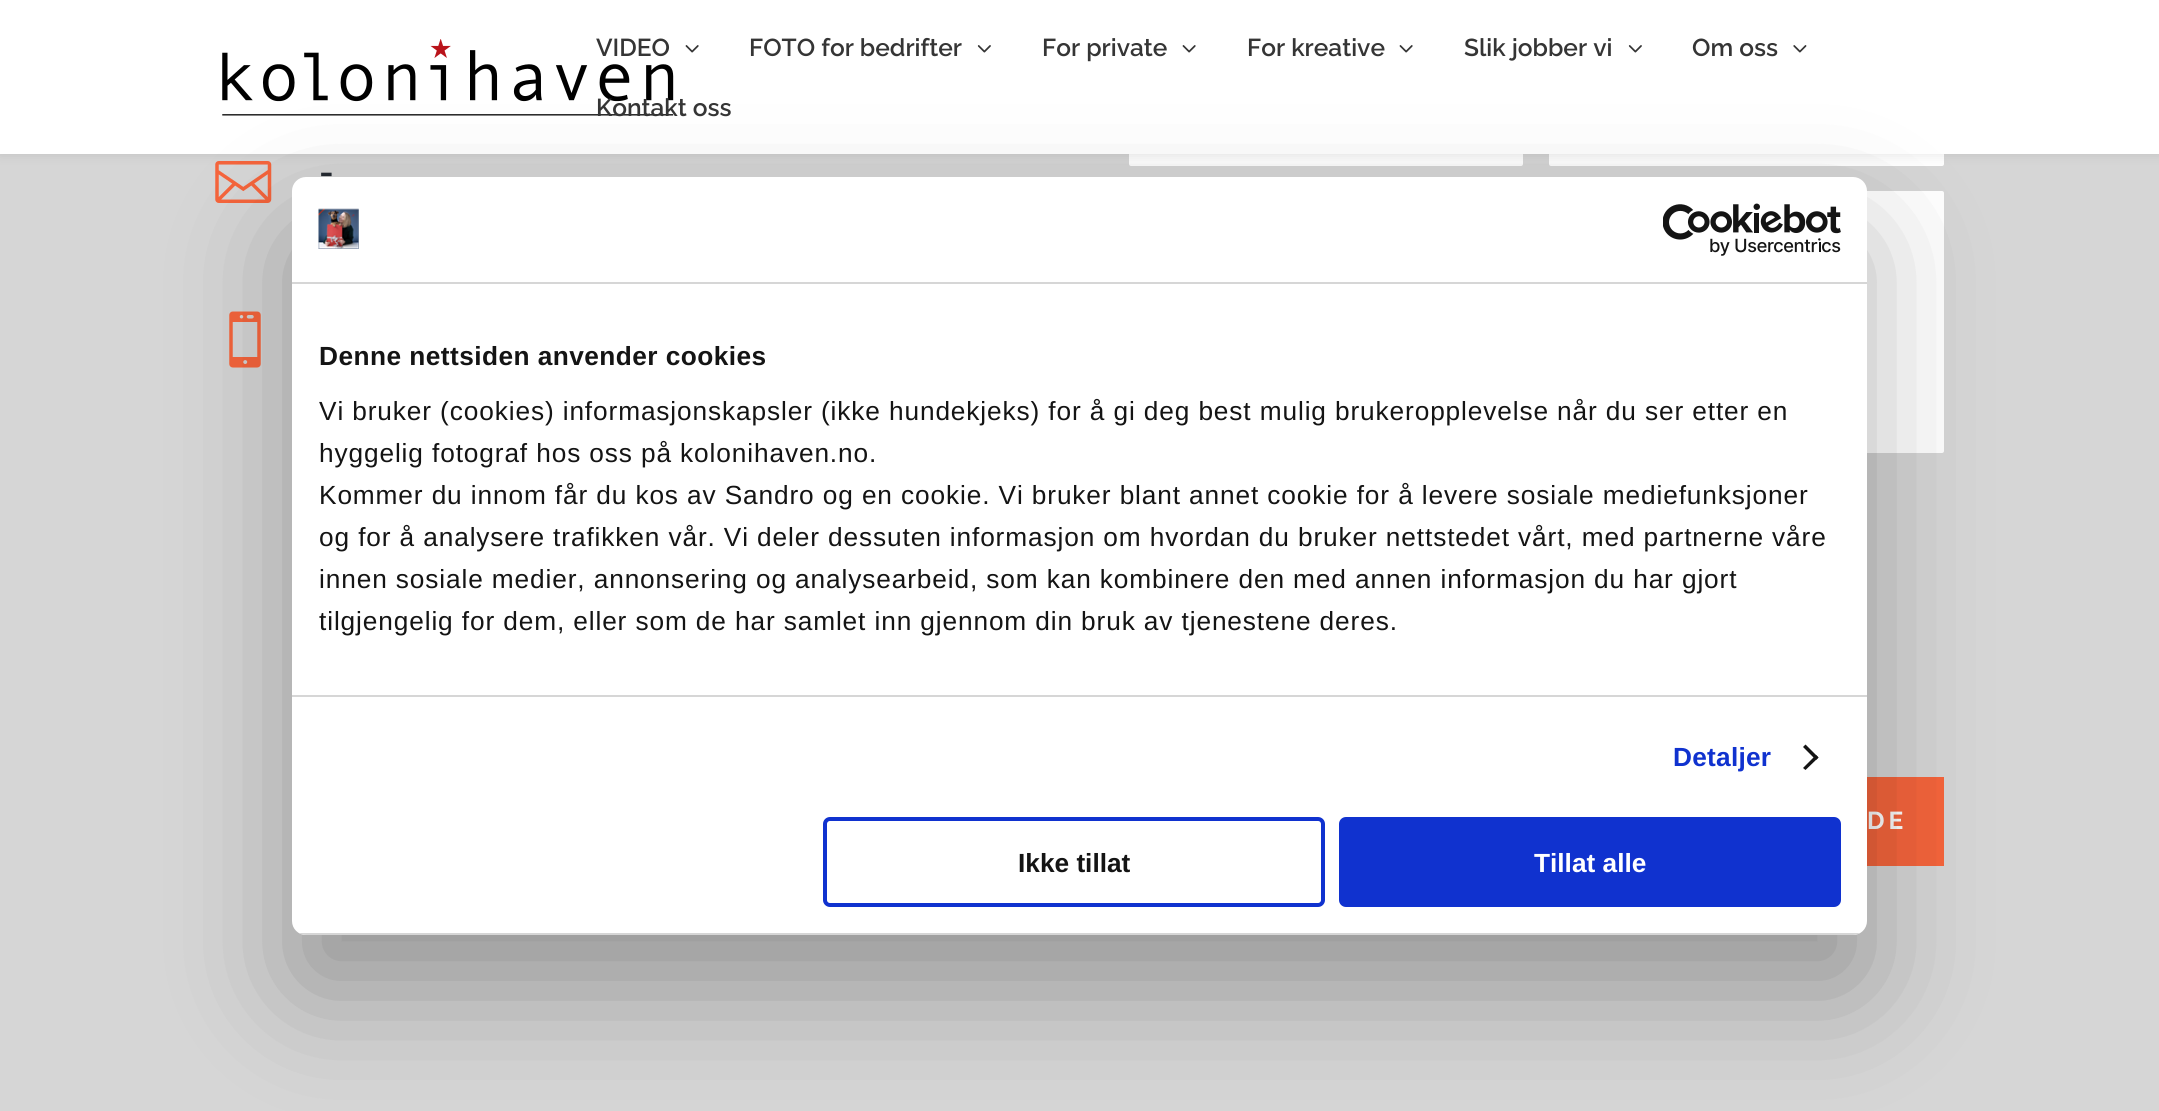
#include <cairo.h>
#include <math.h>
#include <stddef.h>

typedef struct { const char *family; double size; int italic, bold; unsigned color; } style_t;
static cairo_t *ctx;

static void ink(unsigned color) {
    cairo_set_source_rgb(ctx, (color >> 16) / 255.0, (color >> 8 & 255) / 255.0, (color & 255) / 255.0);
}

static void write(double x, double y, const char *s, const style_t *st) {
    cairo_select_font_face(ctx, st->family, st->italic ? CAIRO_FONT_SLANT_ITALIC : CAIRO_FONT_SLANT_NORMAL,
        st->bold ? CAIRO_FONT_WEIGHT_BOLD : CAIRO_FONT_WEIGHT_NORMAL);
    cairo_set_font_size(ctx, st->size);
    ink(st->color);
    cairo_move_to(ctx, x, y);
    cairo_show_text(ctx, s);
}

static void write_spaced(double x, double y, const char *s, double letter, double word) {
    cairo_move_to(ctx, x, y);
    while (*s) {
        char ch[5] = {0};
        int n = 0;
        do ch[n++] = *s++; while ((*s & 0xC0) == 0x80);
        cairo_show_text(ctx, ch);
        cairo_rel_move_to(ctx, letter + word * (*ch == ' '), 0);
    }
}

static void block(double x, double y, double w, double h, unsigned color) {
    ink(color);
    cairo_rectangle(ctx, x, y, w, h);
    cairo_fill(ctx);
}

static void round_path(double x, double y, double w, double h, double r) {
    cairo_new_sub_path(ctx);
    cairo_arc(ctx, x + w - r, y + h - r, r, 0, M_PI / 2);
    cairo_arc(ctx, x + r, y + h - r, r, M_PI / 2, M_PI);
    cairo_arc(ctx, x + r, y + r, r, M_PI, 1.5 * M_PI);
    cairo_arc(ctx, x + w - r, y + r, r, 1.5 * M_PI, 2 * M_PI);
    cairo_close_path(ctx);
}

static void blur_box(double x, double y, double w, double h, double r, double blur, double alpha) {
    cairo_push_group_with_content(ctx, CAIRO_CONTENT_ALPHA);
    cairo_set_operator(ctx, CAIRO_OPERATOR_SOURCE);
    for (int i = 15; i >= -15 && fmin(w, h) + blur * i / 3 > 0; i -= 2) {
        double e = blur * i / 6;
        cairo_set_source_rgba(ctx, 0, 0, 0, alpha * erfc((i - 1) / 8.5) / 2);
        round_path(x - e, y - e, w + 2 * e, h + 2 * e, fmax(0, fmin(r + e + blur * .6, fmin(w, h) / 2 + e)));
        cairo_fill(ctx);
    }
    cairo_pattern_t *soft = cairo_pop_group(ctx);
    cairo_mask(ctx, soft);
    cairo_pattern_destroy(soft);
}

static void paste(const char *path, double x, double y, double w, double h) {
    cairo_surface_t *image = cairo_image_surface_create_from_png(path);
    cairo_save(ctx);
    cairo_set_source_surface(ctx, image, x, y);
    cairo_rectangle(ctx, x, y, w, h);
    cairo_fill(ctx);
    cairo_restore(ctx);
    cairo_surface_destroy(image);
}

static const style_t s1 = {"Raleway Thin", 24.5, 0, 0, 0x353535};
static const style_t s2 = {"Raleway Thin", 35, 0, 0, 0x252a31};
static const style_t s3 = {"Liberation Sans", 26.25, 0, 1, 0x141414};
static const style_t s4 = {"Liberation Sans", 26.25, 0, 1, 0xffffff};

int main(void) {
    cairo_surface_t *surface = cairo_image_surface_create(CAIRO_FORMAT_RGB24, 2159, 1111);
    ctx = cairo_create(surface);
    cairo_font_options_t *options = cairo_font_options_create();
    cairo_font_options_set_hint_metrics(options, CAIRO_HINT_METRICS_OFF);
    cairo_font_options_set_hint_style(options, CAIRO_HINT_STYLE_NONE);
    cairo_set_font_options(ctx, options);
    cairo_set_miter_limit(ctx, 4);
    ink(0xd6d6d6);
    cairo_paint(ctx);
    paste("pic5.png", 215, 161, 57, 42);
    ink(0xffffff);
    round_path(1129, 77, 394, 89, 2);
    cairo_fill(ctx);
    round_path(1549, 77, 395, 89, 2);
    cairo_fill(ctx);
    ink(0x000000);
    blur_box(0, 0, 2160, 154, 0, 6, 0.1);
    block(0, 0, 2159, 154, 0xffffff);
    paste("pic1.png", 222, 39, 452, 77);
    write(596, 56, "VIDEO", &s1);
    paste("pic2.png", 685, 45, 14, 8);
    write(749, 56, "FOTO for bedrifter", &s1);
    paste("pic3.png", 977, 45, 14, 8);
    write(1042, 56, "For private", &s1);
    paste("pic2.png", 1182, 45, 14, 8);
    write(1247, 56, "For kreative", &s1);
    paste("pic2.png", 1399, 45, 14, 8);
    write(1464, 56, "Slik jobber vi", &s1);
    paste("pic3.png", 1628, 45, 14, 8);
    write(1692, 56, "Om oss", &s1);
    paste("pic4.png", 1793, 45, 14, 8);
    write(596, 116, "Kontakt oss", &s1);
    write(319, 184, "-", &s2);
    paste("pic6.png", 229, 311, 32, 57);
    ink(0xffffff);
    round_path(1129, 191, 815, 262, 2);
    cairo_fill(ctx);
    block(1867, 777, 77, 89, 0xf6653c);
    cairo_select_font_face(ctx, "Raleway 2 Thin", CAIRO_FONT_SLANT_NORMAL, CAIRO_FONT_WEIGHT_NORMAL);
    cairo_set_font_size(ctx, 24.5);
    ink(0xffffff);
    write_spaced(1867, 829, "DE", 4, 0);
    ink(0x000000);
    blur_box(292, 233, 1575, 758, 14, 59.5, 0.3);
    ink(0xffffff);
    round_path(292, 177, 1575, 758, 14);
    cairo_fill(ctx);
    block(292, 282, 1575, 2, 0xd6d6d6);
    paste("pic7.png", 318, 208, 41, 41);
    paste("pic8.png", 1663, 203, 178, 53);
    block(292, 695, 1575, 2, 0xd6d6d6);
    cairo_select_font_face(ctx, "Liberation Sans", CAIRO_FONT_SLANT_NORMAL, CAIRO_FONT_WEIGHT_BOLD);
    cairo_set_font_size(ctx, 26.25);
    ink(0x141414);
    write_spaced(319, 365, "Denne nettsiden anvender cookies", 0.45, 0);
    cairo_select_font_face(ctx, "Liberation Sans", CAIRO_FONT_SLANT_NORMAL, CAIRO_FONT_WEIGHT_NORMAL);
    write_spaced(319, 420, "Vi bruker (cookies) informasjonskapsler (ikke hundekjeks) for å gi deg best mulig brukeropplevelse når du ser etter en", 0.88, 0);
    write_spaced(319, 462, "hyggelig fotograf hos oss på kolonihaven.no.", 0.88, 0);
    write_spaced(319, 504, "Kommer du innom får du kos av Sandro og en cookie. Vi bruker blant annet cookie for å levere sosiale mediefunksjoner", 0.88, 0);
    write_spaced(319, 546, "og for å analysere trafikken vår. Vi deler dessuten informasjon om hvordan du bruker nettstedet vårt, med partnerne våre", 0.88, 0);
    write_spaced(319, 588, "innen sosiale medier, annonsering og analysearbeid, som kan kombinere den med annen informasjon du har gjort", 0.88, 0);
    write_spaced(319, 630, "tilgjengelig for dem, eller som de har samlet inn gjennom din bruk av tjenestene deres.", 0.88, 0);
    cairo_select_font_face(ctx, "Liberation Sans", CAIRO_FONT_SLANT_NORMAL, CAIRO_FONT_WEIGHT_BOLD);
    ink(0x1032cf);
    write_spaced(1673, 766, "Detaljer", 0.25, 0);
    ink(0x141414);
    cairo_new_path(ctx);
    cairo_move_to(ctx, 1805.5, 744.5);
    cairo_line_to(ctx, 1818.5, 757.5);
    cairo_line_to(ctx, 1816, 760);
    cairo_line_to(ctx, 1803, 747);
    cairo_close_path(ctx);
    cairo_fill(ctx);
    cairo_new_path(ctx);
    cairo_move_to(ctx, 1816, 755);
    cairo_line_to(ctx, 1818.5, 757.5);
    cairo_line_to(ctx, 1805.5, 770);
    cairo_line_to(ctx, 1803, 768);
    cairo_close_path(ctx);
    cairo_fill(ctx);
    cairo_save(ctx);
    round_path(292, 177, 1575, 758, 14);
    cairo_clip(ctx);
    block(292, 933, 1575, 2, 0xd6d6d6);
    cairo_restore(ctx);
    round_path(825, 819, 498, 86, 5);
    ink(0x1032cf);
    cairo_set_line_width(ctx, 4);
    cairo_stroke(ctx);
    write(1018, 872, "Ikke tillat", &s3);
    ink(0x1032cf);
    round_path(1341, 819, 498, 86, 5);
    cairo_fill_preserve(ctx);
    cairo_stroke(ctx);
    write(1534, 872, "Tillat alle", &s4);
    cairo_surface_write_to_png(surface, "screenshot.png");
    cairo_font_options_destroy(options);
    cairo_destroy(ctx);
    cairo_surface_destroy(surface);
    return 0;
}
